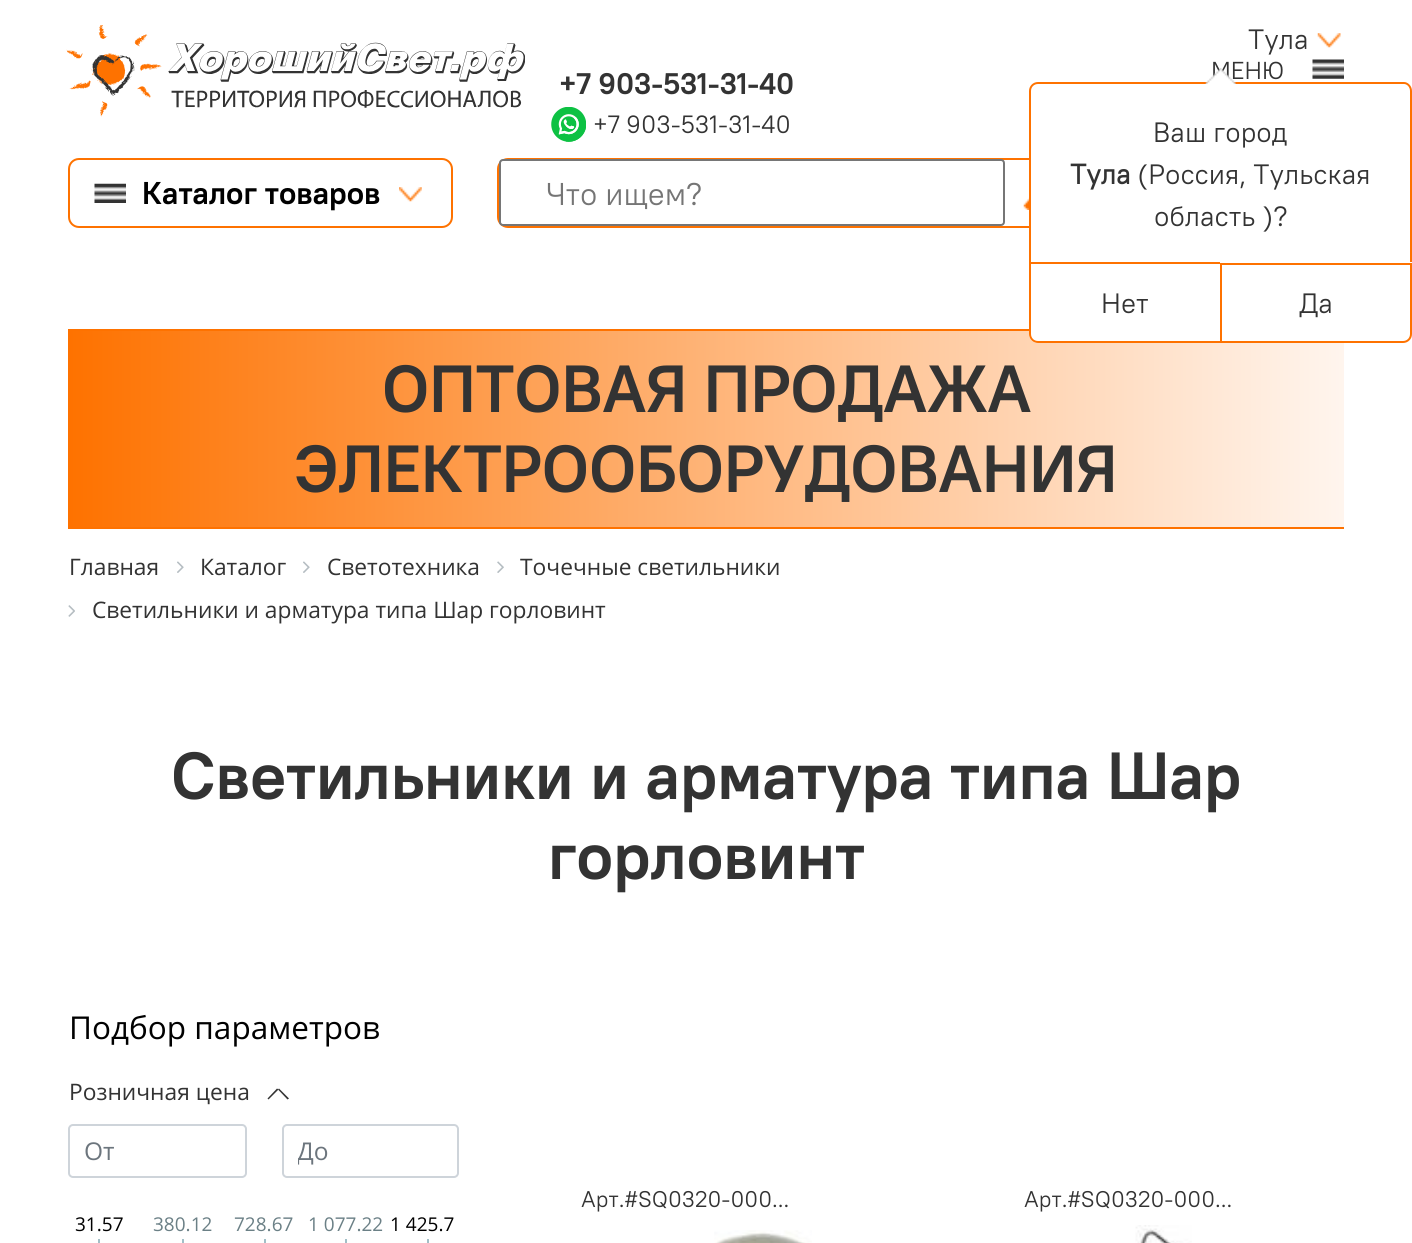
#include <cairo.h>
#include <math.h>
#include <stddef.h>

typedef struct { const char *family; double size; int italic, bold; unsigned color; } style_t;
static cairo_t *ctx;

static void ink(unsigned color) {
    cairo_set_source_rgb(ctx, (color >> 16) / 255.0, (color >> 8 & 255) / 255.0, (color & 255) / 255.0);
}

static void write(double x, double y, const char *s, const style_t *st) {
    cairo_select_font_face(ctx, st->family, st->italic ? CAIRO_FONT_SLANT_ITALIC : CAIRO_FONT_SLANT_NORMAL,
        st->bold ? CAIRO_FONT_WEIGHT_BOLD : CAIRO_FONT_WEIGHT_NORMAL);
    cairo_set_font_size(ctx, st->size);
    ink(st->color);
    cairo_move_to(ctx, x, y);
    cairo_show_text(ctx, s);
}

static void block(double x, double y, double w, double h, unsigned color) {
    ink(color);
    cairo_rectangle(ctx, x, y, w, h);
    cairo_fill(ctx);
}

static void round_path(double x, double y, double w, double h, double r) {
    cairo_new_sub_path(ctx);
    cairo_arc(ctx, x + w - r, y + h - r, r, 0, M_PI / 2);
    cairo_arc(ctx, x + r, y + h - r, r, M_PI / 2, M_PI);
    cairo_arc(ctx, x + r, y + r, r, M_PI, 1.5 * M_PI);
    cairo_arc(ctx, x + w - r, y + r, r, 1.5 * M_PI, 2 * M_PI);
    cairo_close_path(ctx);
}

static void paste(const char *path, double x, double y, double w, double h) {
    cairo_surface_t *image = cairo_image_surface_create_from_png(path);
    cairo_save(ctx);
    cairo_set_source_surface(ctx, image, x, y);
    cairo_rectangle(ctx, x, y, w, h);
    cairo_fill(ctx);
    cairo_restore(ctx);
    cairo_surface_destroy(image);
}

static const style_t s1 = {"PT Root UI", 28, 0, 0, 0x333333};
static const style_t s2 = {"PT Root UI", 24.5, 0, 0, 0x333333};
static const style_t s3 = {"PT Root UI", 29.75, 0, 1, 0x333333};
static const style_t s4 = {"PT Root UI", 25, 0, 0, 0x333333};
static const style_t s5 = {"PT Root UI", 31.5, 0, 1, 0x000000};
static const style_t s6 = {"PT Root UI", 31.5, 0, 0, 0x757575};
static const style_t s7 = {"PT Root UI", 66.5, 0, 1, 0x333333};
static const style_t s8 = {"Open Sans", 22.75, 0, 0, 0x333333};
static const style_t s9 = {"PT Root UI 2", 28, 0, 1, 0x333333};
static const style_t s10 = {"Open Sans", 31.5, 0, 0, 0x000000};
static const style_t s11 = {"Open Sans", 24.5, 0, 0, 0x6c757d};
static const style_t s12 = {"Open Sans", 19, 0, 0, 0x000000};
static const style_t s13 = {"Open Sans", 19, 0, 0, 0x6b8086};
static const style_t s14 = {"PT Root UI", 22.75, 0, 0, 0x333333};

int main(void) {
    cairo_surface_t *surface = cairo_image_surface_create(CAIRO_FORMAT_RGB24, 1412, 1243);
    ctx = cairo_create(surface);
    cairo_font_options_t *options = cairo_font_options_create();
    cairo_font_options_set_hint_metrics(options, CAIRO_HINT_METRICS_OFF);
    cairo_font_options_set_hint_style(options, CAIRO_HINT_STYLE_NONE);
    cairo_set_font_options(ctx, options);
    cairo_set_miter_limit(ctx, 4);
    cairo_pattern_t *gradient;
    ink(0xffffff);
    cairo_paint(ctx);
    paste("pic1.png", 66, 25, 459, 92);
    write(1248, 49, "Тула", &s1);
    paste("pic2.png", 1317, 33, 24, 15);
    paste("pic3.png", 1312, 59, 32, 20);
    write(1211, 79, "МЕНЮ", &s2);
    write(559, 94, "+7 903-531-31-40", &s3);
    paste("pic4.png", 551, 107, 35, 35);
    write(593, 133, "+7 903-531-31-40", &s4);
    round_path(69, 159, 383, 68, 10);
    ink(0xfe7200);
    cairo_stroke(ctx);
    paste("pic5.png", 94, 183, 32, 20);
    write(142, 204, "Каталог товаров", &s5);
    paste("pic6.png", 399, 187, 23, 15);
    round_path(498, 159, 576, 68, 10);
    ink(0xfe7200);
    cairo_stroke(ctx);
    ink(0xffffff);
    round_path(500, 160, 504, 65, 3);
    cairo_fill_preserve(ctx);
    ink(0x767676);
    cairo_stroke(ctx);
    write(546, 205, "Что ищем?", &s6);
    paste("pic7.png", 1023, 197, 6, 13);
    gradient = cairo_pattern_create_linear(68, 429, 1344, 429);
    cairo_pattern_add_color_stop_rgba(gradient, 0, 0.996, 0.447, 0, 1);
    cairo_pattern_add_color_stop_rgba(gradient, 1, 1, 0.961, 0.933, 1);
    cairo_set_source(ctx, gradient);
    cairo_pattern_destroy(gradient);
    cairo_rectangle(ctx, 68, 331, 1276, 196);
    cairo_fill(ctx);
    block(68, 329, 961, 2, 0xfe7200);
    block(68, 527, 1276, 2, 0xfe7200);
    write(382, 412, "ОПТОВАЯ ПРОДАЖА", &s7);
    write(294, 492, "ЭЛЕКТРООБОРУДОВАНИЯ", &s7);
    write(69, 575, "Главная", &s8);
    paste("pic8.png", 177, 561, 7, 12);
    write(200, 575, "Каталог", &s8);
    paste("pic8.png", 303, 561, 7, 12);
    write(327, 575, "Светотехника", &s8);
    paste("pic9.png", 497, 561, 7, 12);
    write(520, 575, "Точечные светильники", &s8);
    paste("pic10.png", 68, 605, 7, 12);
    write(92, 618, "Светильники и арматура типа Шар горловинт", &s8);
    ink(0xffffff);
    round_path(1029, 82, 383, 261, 9);
    cairo_fill(ctx);
    ink(0xfe7200);
    cairo_set_fill_rule(ctx, CAIRO_FILL_RULE_EVEN_ODD);
    cairo_new_path(ctx);
    cairo_move_to(ctx, 1038, 82);
    cairo_line_to(ctx, 1404, 82);
    cairo_curve_to(ctx, 1408, 82, 1412, 86, 1412, 91);
    cairo_line_to(ctx, 1412, 262);
    cairo_line_to(ctx, 1029, 262);
    cairo_line_to(ctx, 1029, 91);
    cairo_curve_to(ctx, 1029, 86, 1033, 82, 1038, 82);
    cairo_close_path(ctx);
    cairo_move_to(ctx, 1038, 84);
    cairo_line_to(ctx, 1404, 84);
    cairo_curve_to(ctx, 1407, 84, 1410, 87, 1410, 91);
    cairo_line_to(ctx, 1410, 262);
    cairo_line_to(ctx, 1031, 262);
    cairo_line_to(ctx, 1031, 91);
    cairo_curve_to(ctx, 1031, 87, 1034, 84, 1038, 84);
    cairo_close_path(ctx);
    cairo_fill(ctx);
    paste("pic11.png", 1205, 68, 31, 16);
    write(1153, 142, "Ваш город", &s1);
    write(1070, 184, "Тула", &s9);
    write(1137, 184, "(Россия, Тульская", &s1);
    write(1154, 226, "область )?", &s1);
    ink(0xffffff);
    cairo_new_path(ctx);
    cairo_move_to(ctx, 1029, 263);
    cairo_line_to(ctx, 1220, 263);
    cairo_line_to(ctx, 1220, 343);
    cairo_line_to(ctx, 1038, 343);
    cairo_curve_to(ctx, 1033, 343, 1029, 339, 1029, 334);
    cairo_close_path(ctx);
    cairo_fill(ctx);
    ink(0xfe7200);
    cairo_new_path(ctx);
    cairo_move_to(ctx, 1029, 262);
    cairo_line_to(ctx, 1220, 262);
    cairo_line_to(ctx, 1220, 343);
    cairo_line_to(ctx, 1038, 343);
    cairo_curve_to(ctx, 1033, 343, 1029, 339, 1029, 334);
    cairo_close_path(ctx);
    cairo_move_to(ctx, 1031, 264);
    cairo_line_to(ctx, 1220, 264);
    cairo_line_to(ctx, 1220, 341);
    cairo_line_to(ctx, 1038, 341);
    cairo_curve_to(ctx, 1034, 341, 1031, 338, 1031, 334);
    cairo_close_path(ctx);
    cairo_fill(ctx);
    write(1101, 313, "Нет", &s1);
    cairo_new_path(ctx);
    cairo_move_to(ctx, 1221, 264);
    cairo_line_to(ctx, 1411, 264);
    cairo_line_to(ctx, 1411, 334);
    cairo_curve_to(ctx, 1411, 338.5, 1407.5, 342, 1403, 342);
    cairo_line_to(ctx, 1221, 342);
    cairo_close_path(ctx);
    ink(0xfe7200);
    cairo_stroke(ctx);
    write(1299, 313, "Да", &s1);
    write(171, 799, "Светильники и арматура типа Шар", &s7);
    write(548, 879, "горловинт", &s7);
    write(69, 1039, "Подбор параметров", &s10);
    write(69, 1100, "Розничная цена", &s8);
    cairo_set_fill_rule(ctx, CAIRO_FILL_RULE_WINDING);
    cairo_new_path(ctx);
    cairo_move_to(ctx, 267.5, 1098.5);
    cairo_line_to(ctx, 277, 1088.5);
    cairo_line_to(ctx, 278.5, 1089.5);
    cairo_line_to(ctx, 268.5, 1099.5);
    cairo_close_path(ctx);
    cairo_fill(ctx);
    cairo_new_path(ctx);
    cairo_move_to(ctx, 279, 1088.5);
    cairo_line_to(ctx, 289, 1098.5);
    cairo_line_to(ctx, 287.5, 1099.5);
    cairo_line_to(ctx, 278, 1089.5);
    cairo_close_path(ctx);
    cairo_fill(ctx);
    round_path(69, 1125, 177, 52, 4);
    ink(0xced4da);
    cairo_stroke(ctx);
    write(84, 1160, "От", &s11);
    round_path(283, 1125, 175, 52, 4);
    ink(0xced4da);
    cairo_stroke(ctx);
    cairo_save(ctx);
    cairo_rectangle(ctx, 298, 1134, 145, 33);
    cairo_clip(ctx);
    write(297, 1160, "До", &s11);
    cairo_restore(ctx);
    block(98, 1239, 2, 4, 0xa2bfc7);
    write(75, 1231, "31.57", &s12);
    block(182, 1239, 2, 4, 0xa2bfc7);
    write(153, 1231, "380.12", &s13);
    block(264, 1239, 2, 4, 0xa2bfc7);
    write(234, 1231, "728.67", &s13);
    block(345, 1239, 2, 4, 0xa2bfc7);
    write(308, 1231, "1 077.22", &s13);
    block(427, 1239, 2, 4, 0xa2bfc7);
    write(390, 1231, "1 425.7", &s12);
    write(581, 1207, "Арт.#SQ0320-000...", &s14);
    paste("pic12.png", 714, 1230, 98, 13);
    write(1024, 1207, "Арт.#SQ0320-000...", &s14);
    paste("pic13.png", 1135, 1225, 57, 18);
    cairo_surface_write_to_png(surface, "screenshot.png");
    cairo_font_options_destroy(options);
    cairo_destroy(ctx);
    cairo_surface_destroy(surface);
    return 0;
}
